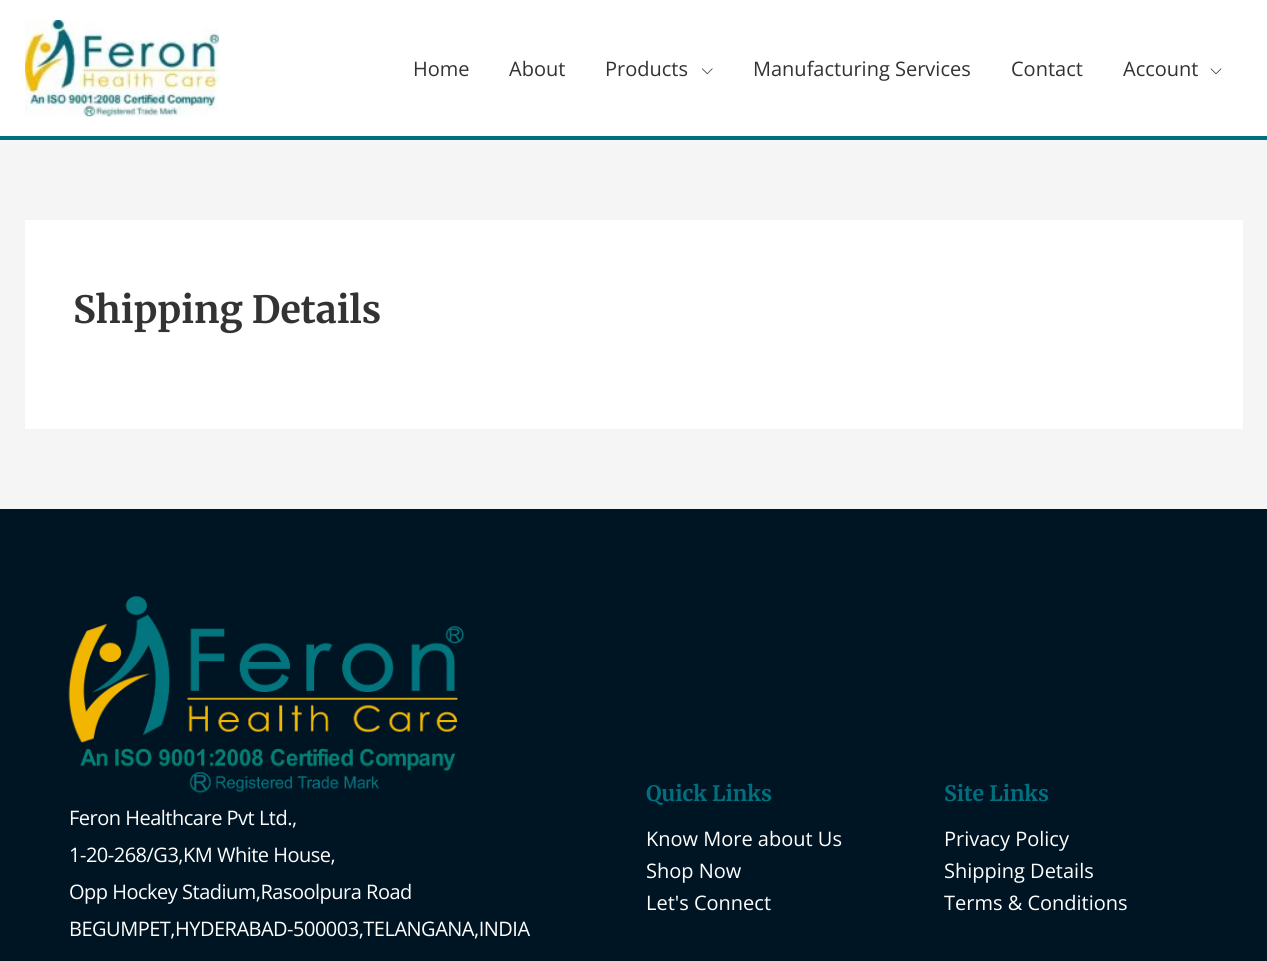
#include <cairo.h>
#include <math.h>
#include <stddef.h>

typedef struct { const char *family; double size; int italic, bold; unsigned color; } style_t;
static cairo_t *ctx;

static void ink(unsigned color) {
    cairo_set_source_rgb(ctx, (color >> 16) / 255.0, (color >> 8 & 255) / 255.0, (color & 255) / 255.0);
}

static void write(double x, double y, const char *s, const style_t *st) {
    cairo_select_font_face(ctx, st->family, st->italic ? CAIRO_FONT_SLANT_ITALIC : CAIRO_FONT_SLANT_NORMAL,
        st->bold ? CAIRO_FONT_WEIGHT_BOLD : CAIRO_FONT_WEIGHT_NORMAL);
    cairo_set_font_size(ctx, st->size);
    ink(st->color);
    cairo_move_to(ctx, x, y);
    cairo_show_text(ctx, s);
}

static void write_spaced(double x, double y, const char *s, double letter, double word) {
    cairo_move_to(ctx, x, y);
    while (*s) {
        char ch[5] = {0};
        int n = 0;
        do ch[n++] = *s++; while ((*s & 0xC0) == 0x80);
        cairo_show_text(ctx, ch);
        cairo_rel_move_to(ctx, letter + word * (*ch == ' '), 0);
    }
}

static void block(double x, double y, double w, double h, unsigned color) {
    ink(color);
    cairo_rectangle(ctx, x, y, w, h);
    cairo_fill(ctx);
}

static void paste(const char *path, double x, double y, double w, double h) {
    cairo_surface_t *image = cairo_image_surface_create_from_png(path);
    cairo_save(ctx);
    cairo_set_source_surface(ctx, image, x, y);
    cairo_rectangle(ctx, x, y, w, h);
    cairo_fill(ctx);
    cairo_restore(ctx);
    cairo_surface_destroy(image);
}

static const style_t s1 = {"Open Sans", 20, 0, 0, 0x333333};
static const style_t s2 = {"Merriweather Light", 37.5, 0, 0, 0x333333};
static const style_t s3 = {"Merriweather Light", 21.25, 0, 0, 0x00707f};
static const style_t s4 = {"Open Sans", 20, 0, 0, 0xffffff};

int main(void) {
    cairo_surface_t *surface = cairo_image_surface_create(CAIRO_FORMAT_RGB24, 1267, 961);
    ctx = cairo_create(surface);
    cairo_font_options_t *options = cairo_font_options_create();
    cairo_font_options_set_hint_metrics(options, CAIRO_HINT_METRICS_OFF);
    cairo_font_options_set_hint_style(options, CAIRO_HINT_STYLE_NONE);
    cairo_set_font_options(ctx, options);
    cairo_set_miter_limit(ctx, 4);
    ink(0xf5f5f5);
    cairo_paint(ctx);
    block(0, 0, 1267, 136, 0xffffff);
    block(0, 136, 1267, 4, 0x00707f);
    paste("pic1.png", 25, 20, 194, 97);
    write(413, 76, "Home", &s1);
    write(509, 76, "About", &s1);
    write(605, 76, "Products", &s1);
    paste("pic2.png", 701, 68, 12, 7);
    write(753, 76, "Manufacturing Services", &s1);
    write(1011, 76, "Contact", &s1);
    write(1123, 76, "Account", &s1);
    paste("pic3.png", 1210, 68, 12, 7);
    block(25, 220, 1218, 209, 0xffffff);
    write(73, 323, "Shipping Details", &s2);
    block(0, 509, 1267, 452, 0x001524);
    paste("pic4.png", 68, 596, 396, 197);
    cairo_select_font_face(ctx, "Open Sans", CAIRO_FONT_SLANT_NORMAL, CAIRO_FONT_WEIGHT_NORMAL);
    cairo_set_font_size(ctx, 20);
    ink(0xffffff);
    write_spaced(69, 825, "Feron Healthcare Pvt Ltd.,", -0.5, 0);
    write_spaced(69, 862, "1-20-268/G3,KM White House,", -0.5, 0);
    write_spaced(69, 899, "Opp Hockey Stadium,Rasoolpura Road", -0.5, 0);
    write_spaced(69, 936, "BEGUMPET,HYDERABAD-500003,TELANGANA,INDIA", -0.5, 0);
    write(646, 801, "Quick Links", &s3);
    write(646, 846, "Know More about Us", &s4);
    write(646, 878, "Shop Now", &s4);
    write(646, 910, "Let's Connect", &s4);
    write(944, 801, "Site Links", &s3);
    write(944, 846, "Privacy Policy", &s4);
    write(944, 878, "Shipping Details", &s4);
    write(944, 910, "Terms & Conditions", &s4);
    cairo_surface_write_to_png(surface, "screenshot.png");
    cairo_font_options_destroy(options);
    cairo_destroy(ctx);
    cairo_surface_destroy(surface);
    return 0;
}
